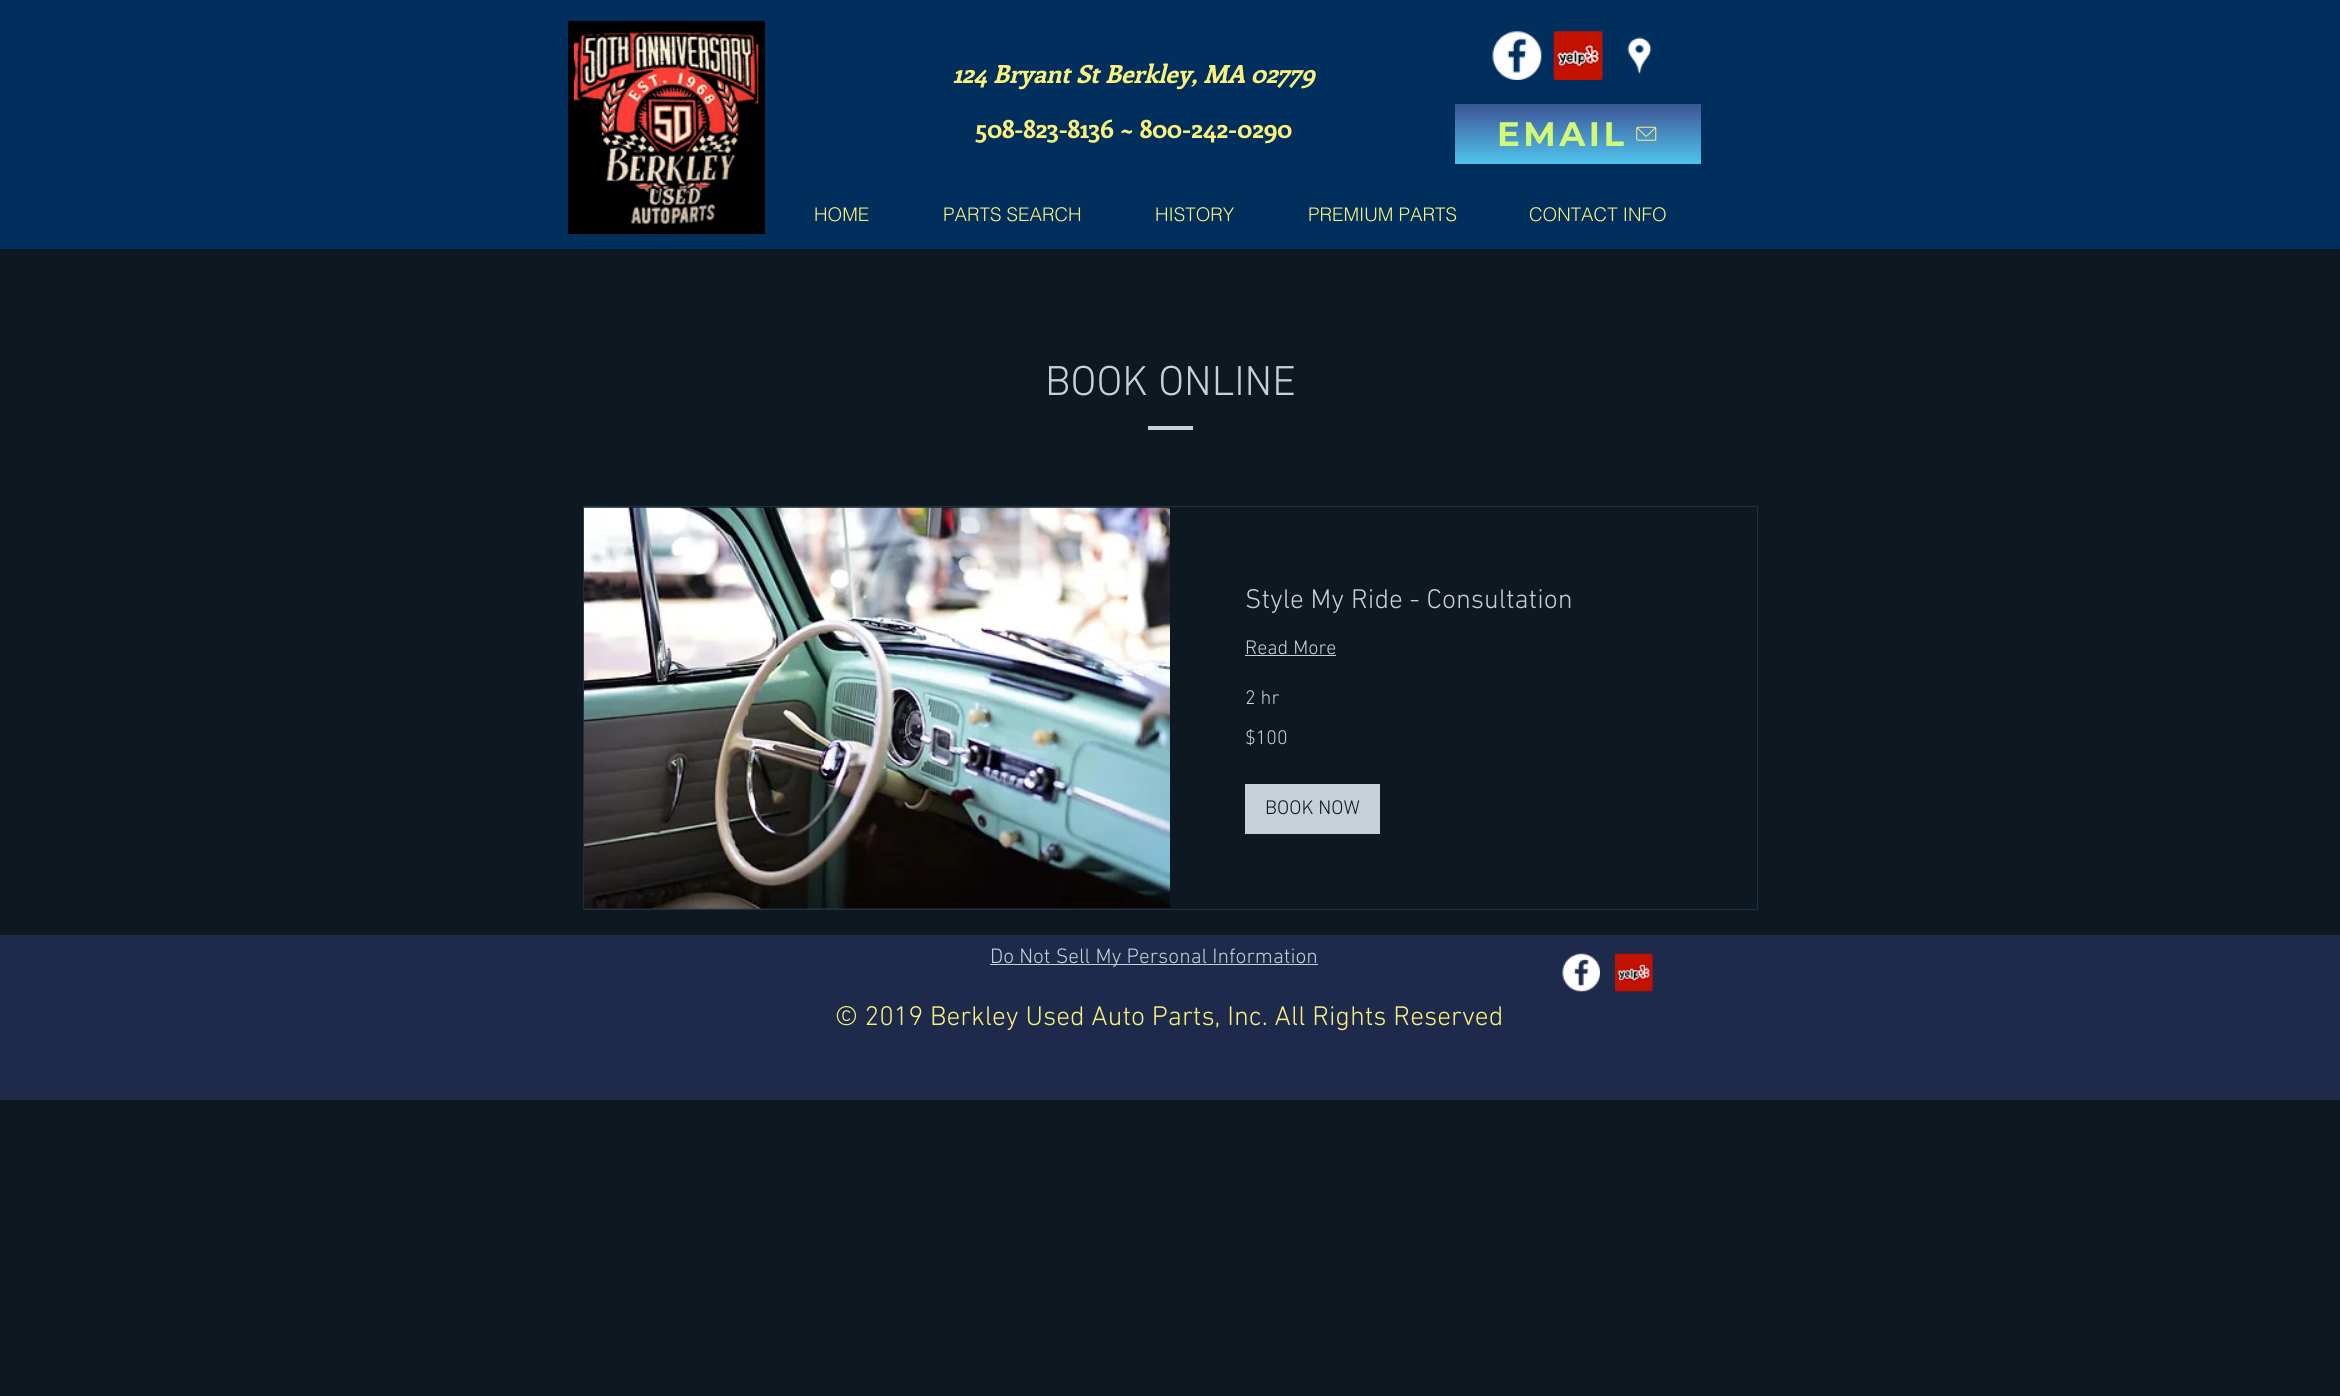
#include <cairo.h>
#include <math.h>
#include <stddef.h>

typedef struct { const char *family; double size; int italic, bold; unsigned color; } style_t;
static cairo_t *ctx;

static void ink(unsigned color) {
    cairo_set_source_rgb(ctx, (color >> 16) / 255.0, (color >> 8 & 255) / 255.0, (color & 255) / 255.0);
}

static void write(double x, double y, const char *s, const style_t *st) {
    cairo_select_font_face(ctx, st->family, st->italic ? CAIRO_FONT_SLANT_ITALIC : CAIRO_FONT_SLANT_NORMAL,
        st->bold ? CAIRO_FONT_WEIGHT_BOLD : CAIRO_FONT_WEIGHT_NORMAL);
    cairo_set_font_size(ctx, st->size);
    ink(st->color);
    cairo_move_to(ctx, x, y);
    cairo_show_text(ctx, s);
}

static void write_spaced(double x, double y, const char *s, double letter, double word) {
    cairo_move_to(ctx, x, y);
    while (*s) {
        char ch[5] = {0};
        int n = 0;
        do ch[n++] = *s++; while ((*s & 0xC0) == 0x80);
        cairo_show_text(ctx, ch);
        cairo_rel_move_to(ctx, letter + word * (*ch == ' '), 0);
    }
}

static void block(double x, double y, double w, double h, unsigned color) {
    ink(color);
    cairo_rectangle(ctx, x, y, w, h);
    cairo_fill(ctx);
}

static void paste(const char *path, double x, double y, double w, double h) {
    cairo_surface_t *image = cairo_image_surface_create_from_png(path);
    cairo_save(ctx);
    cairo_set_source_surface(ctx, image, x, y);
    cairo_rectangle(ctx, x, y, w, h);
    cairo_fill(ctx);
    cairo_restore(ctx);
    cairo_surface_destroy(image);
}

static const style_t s1 = {"Enriqueta", 25, 1, 1, 0xfaf17c};
static const style_t s2 = {"Enriqueta", 25, 0, 1, 0xfaf17c};
static const style_t s3 = {"helvetica Light", 18.75, 0, 0, 0xfaf17c};
static const style_t s4 = {"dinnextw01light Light", 42.5, 0, 0, 0xc5d0d9};
static const style_t s5 = {"dinnextw01light Light", 27.5, 0, 0, 0xc5d0d9};
static const style_t s6 = {"dinnextw01light Light", 20, 0, 0, 0xc5d0d9};
static const style_t s7 = {"dinnextw01light Light", 20, 0, 0, 0x0e1821};
static const style_t s8 = {"dinnextw01light Light", 21.25, 0, 0, 0xc5d0d9};
static const style_t s9 = {"dinnextw01light Light", 27.5, 0, 0, 0xfaf17c};

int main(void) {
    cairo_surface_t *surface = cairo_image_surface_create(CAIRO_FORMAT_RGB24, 2340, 1396);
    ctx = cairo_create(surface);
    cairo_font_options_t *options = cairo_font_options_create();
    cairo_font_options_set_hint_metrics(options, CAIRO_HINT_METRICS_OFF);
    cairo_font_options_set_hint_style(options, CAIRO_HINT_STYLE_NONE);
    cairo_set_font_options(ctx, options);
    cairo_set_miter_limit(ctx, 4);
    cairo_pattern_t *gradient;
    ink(0x0e1821);
    cairo_paint(ctx);
    block(0, 0, 2340, 249, 0x002e5d);
    block(568, 21, 197, 213, 0x000000);
    paste("pic1.png", 574, 31, 185, 194);
    write(953, 83, "124 Bryant St Berkley, MA 02779", &s1);
    paste("pic2.png", 1492, 31, 50, 49);
    paste("pic3.png", 1553, 31, 50, 49);
    paste("pic4.png", 1627, 37, 25, 37);
    write(975, 138, "508-823-8136 ~ 800-242-0290", &s2);
    gradient = cairo_pattern_create_linear(1578, 104, 1578, 164);
    cairo_pattern_add_color_stop_rgba(gradient, 0, 0.239, 0.329, 0.584, 1);
    cairo_pattern_add_color_stop_rgba(gradient, 1, 0.314, 0.769, 0.929, 1);
    cairo_set_source(ctx, gradient);
    cairo_pattern_destroy(gradient);
    cairo_rectangle(ctx, 1455, 104, 246, 60);
    cairo_fill(ctx);
    cairo_select_font_face(ctx, "Montserrat", CAIRO_FONT_SLANT_NORMAL, CAIRO_FONT_WEIGHT_BOLD);
    cairo_set_font_size(ctx, 34);
    ink(0xd2f877);
    write_spaced(1497, 146, "EMAIL", 3.5, 0);
    paste("pic5.png", 1636, 126, 21, 15);
    write(814, 221, "HOME", &s3);
    write(943, 221, "PARTS SEARCH", &s3);
    write(1155, 221, "HISTORY", &s3);
    write(1308, 221, "PREMIUM PARTS", &s3);
    write(1529, 221, "CONTACT INFO", &s3);
    write(1045, 395, "BOOK ONLINE", &s4);
    block(1148, 426, 45, 4, 0xc5d0d9);
    cairo_rectangle(ctx, 583.5, 506.5, 1174, 403);
    ink(0x1c3142);
    cairo_set_line_width(ctx, 1);
    cairo_stroke(ctx);
    block(584, 908, 586, 1, 0x333d46);
    paste("pic6.png", 583, 507, 587, 402);
    write(1245, 608, "Style My Ride - Consultation", &s5);
    write(1245, 654, "Read More", &s6);
    block(1245, 655, 91, 1, 0xc5d0d9);
    write(1245, 704, "2 hr", &s6);
    write(1245, 744, "$100", &s6);
    block(1245, 784, 135, 50, 0xc5d0d9);
    write(1265, 814, "BOOK NOW", &s7);
    block(0, 935, 2340, 165, 0x1e2a4b);
    block(990, 964, 328, 1, 0xc5d0d9);
    write(990, 963, "Do Not Sell My Personal Information", &s8);
    paste("pic7.png", 1562, 953, 38, 39);
    paste("pic8.png", 1615, 953, 38, 39);
    write(835, 1025, "© 2019 Berkley Used Auto Parts, Inc. All Rights Reserved", &s9);
    cairo_surface_write_to_png(surface, "screenshot.png");
    cairo_font_options_destroy(options);
    cairo_destroy(ctx);
    cairo_surface_destroy(surface);
    return 0;
}
